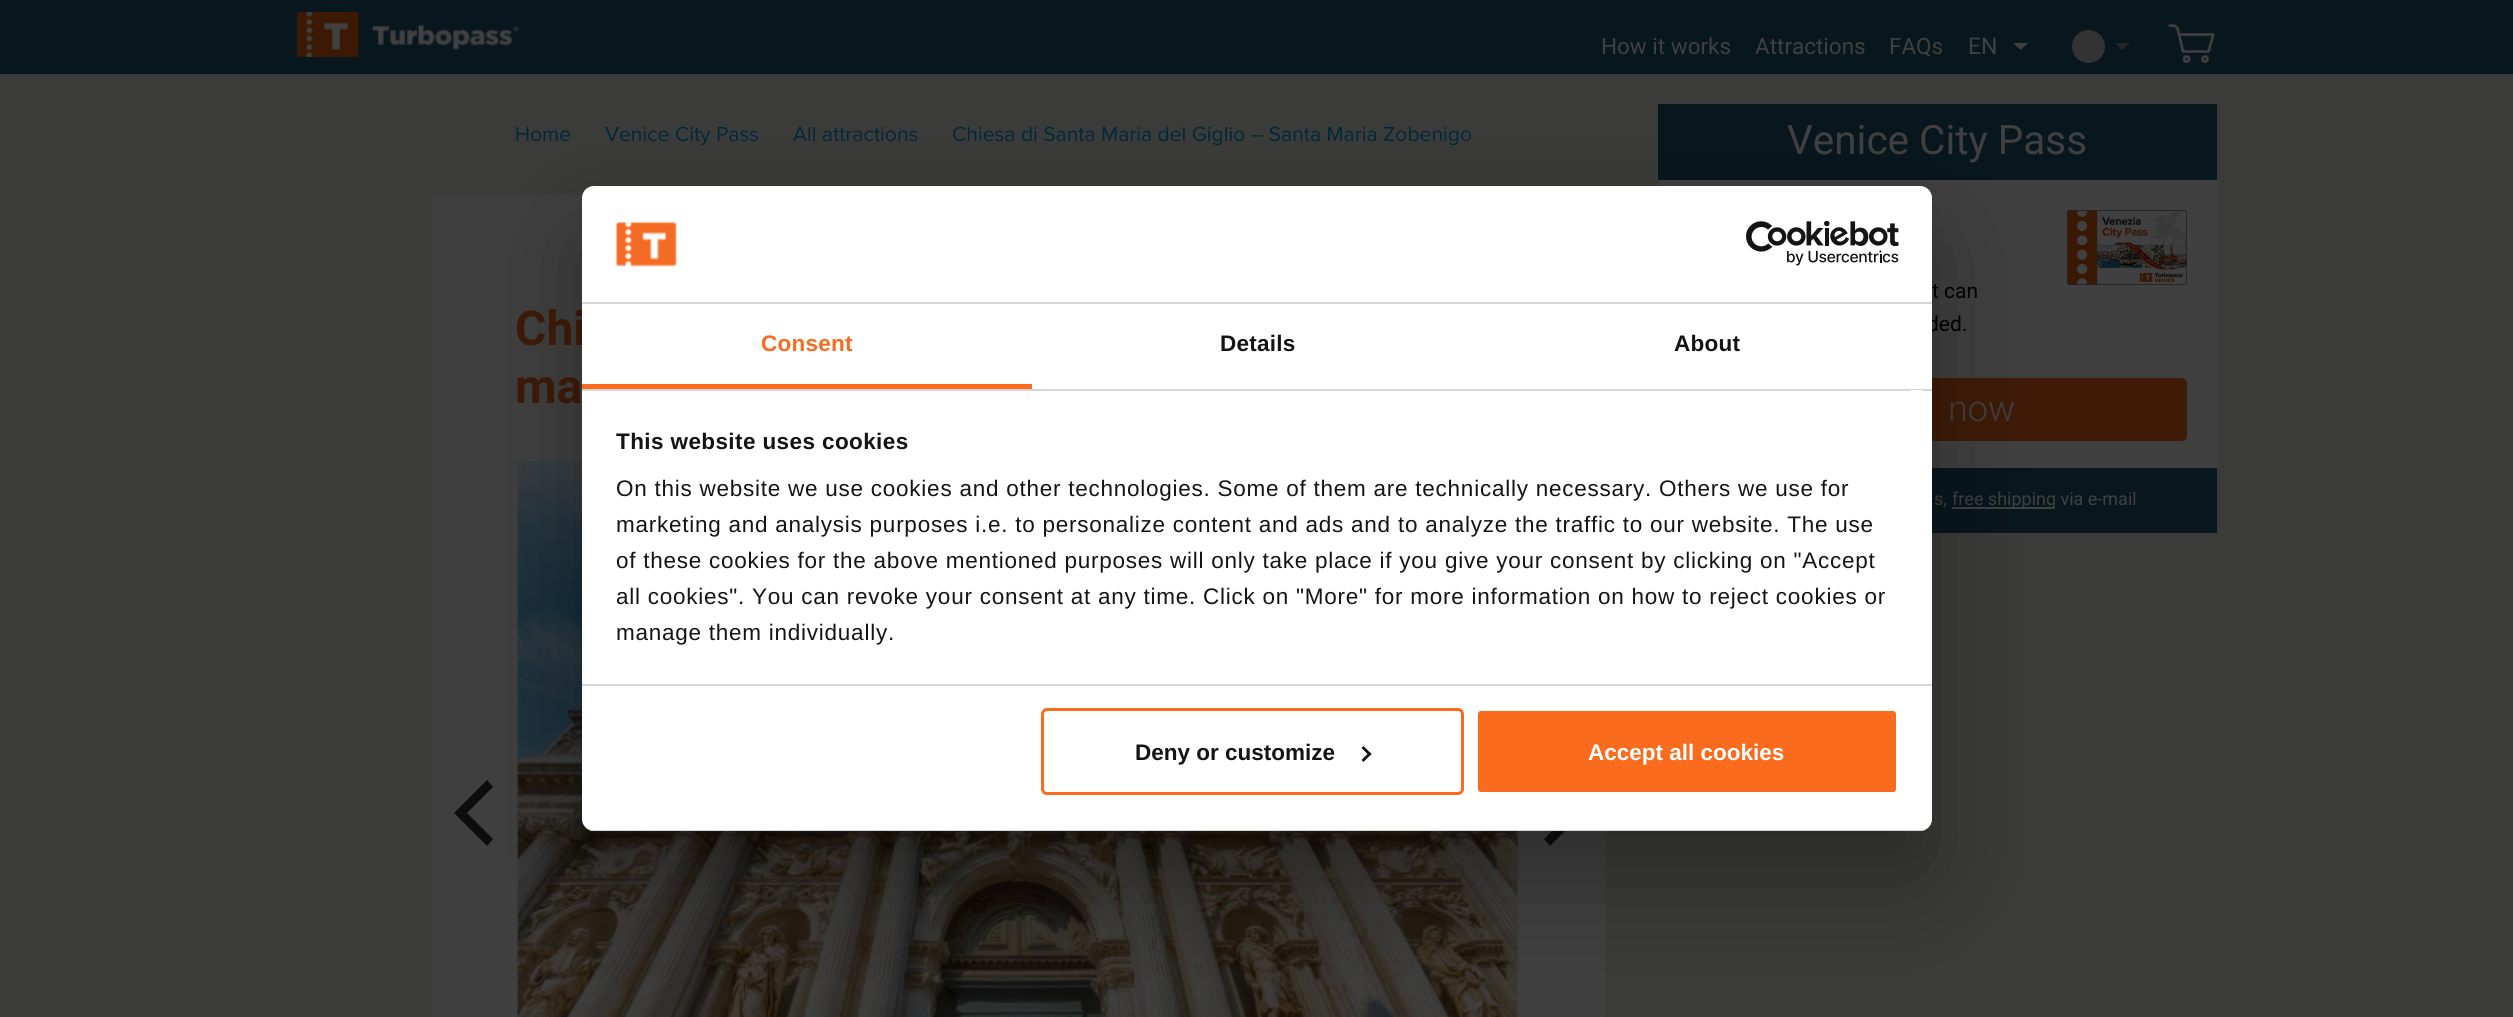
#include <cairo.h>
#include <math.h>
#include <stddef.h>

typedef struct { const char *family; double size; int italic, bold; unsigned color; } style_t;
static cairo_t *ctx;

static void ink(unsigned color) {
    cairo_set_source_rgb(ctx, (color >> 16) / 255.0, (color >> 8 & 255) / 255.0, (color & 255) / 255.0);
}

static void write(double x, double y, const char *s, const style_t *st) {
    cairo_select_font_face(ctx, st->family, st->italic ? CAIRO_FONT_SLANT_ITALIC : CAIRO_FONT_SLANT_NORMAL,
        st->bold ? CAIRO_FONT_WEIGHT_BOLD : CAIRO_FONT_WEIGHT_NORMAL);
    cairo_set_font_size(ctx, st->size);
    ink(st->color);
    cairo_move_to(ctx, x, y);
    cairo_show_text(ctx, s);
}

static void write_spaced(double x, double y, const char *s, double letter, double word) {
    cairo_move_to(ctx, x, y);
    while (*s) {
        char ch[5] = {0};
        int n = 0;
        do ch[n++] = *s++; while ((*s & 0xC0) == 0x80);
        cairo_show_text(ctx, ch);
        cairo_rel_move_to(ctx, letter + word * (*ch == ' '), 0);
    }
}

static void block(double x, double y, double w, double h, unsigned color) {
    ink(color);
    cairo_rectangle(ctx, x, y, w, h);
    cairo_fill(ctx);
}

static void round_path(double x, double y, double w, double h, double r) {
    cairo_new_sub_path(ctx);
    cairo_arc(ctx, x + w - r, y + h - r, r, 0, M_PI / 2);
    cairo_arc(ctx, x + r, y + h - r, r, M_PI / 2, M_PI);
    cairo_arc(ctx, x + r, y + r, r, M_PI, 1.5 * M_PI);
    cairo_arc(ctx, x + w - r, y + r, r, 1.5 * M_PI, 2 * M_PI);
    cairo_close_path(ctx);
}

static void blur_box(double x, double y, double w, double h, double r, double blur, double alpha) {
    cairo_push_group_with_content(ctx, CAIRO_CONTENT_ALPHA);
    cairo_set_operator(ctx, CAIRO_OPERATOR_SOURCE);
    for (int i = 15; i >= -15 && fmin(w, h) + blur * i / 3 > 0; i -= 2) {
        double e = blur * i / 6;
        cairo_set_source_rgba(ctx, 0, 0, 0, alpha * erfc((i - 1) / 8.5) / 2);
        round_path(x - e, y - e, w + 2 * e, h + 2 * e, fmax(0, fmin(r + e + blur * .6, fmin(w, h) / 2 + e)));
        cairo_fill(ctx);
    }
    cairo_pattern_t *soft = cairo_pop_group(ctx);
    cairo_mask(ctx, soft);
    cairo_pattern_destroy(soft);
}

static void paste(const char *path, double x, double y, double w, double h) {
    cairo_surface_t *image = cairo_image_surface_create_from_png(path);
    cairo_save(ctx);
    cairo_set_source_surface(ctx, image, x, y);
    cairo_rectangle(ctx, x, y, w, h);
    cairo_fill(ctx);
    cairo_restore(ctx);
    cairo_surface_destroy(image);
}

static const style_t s1 = {"Roboto", 22.5, 0, 0, 0x404040};
static const style_t s2 = {"Roboto", 23, 0, 0, 0x404040};
static const style_t s3 = {"Proxima Nova", 21.1, 0, 0, 0x002839};
static const style_t s4 = {"Roboto", 48, 0, 1, 0x3f1b08};
static const style_t s5 = {"Roboto", 40.5, 0, 0, 0x404040};
static const style_t s6 = {"Roboto", 21, 0, 0, 0x000000};
static const style_t s7 = {"Roboto Light", 36, 0, 0, 0x404040};
static const style_t s8 = {"Roboto", 18, 0, 0, 0x404040};
static const style_t s9 = {"Liberation Sans", 22.5, 0, 1, 0x141414};
static const style_t s10 = {"Liberation Sans", 22.5, 0, 1, 0xffffff};

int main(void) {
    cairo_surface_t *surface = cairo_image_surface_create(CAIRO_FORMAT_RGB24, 2513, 1017);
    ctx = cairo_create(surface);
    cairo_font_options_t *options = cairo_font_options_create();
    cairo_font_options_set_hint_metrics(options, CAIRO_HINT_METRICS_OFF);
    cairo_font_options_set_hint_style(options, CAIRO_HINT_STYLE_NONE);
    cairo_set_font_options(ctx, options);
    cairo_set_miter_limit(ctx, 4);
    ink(0x3b3b3a);
    cairo_paint(ctx);
    block(0, 0, 2513, 74, 0x08161d);
    paste("pic1.png", 297, 12, 222, 45);
    write(1601, 54, "How it works", &s1);
    write(1755, 54, "Attractions", &s1);
    write(1889, 54, "FAQs", &s1);
    write(1968, 54, "EN", &s2);
    cairo_new_path(ctx);
    cairo_move_to(ctx, 2013, 43);
    cairo_line_to(ctx, 2028, 43);
    cairo_line_to(ctx, 2020.5, 50);
    cairo_close_path(ctx);
    cairo_fill(ctx);
    ink(0x333333);
    cairo_arc(ctx, 2088.5, 46.5, 16.5, 0, 2 * M_PI);
    cairo_fill(ctx);
    ink(0x262626);
    cairo_new_path(ctx);
    cairo_move_to(ctx, 2115, 43);
    cairo_line_to(ctx, 2130, 43);
    cairo_line_to(ctx, 2122.5, 50);
    cairo_close_path(ctx);
    cairo_fill(ctx);
    paste("pic2.png", 2168, 23, 47, 40);
    write(515, 141, "Home", &s3);
    write(605, 141, "Venice City Pass", &s3);
    write(793, 141, "All attractions", &s3);
    write(952, 141, "Chiesa di Santa Maria del Giglio – Santa Maria Zobenigo", &s3);
    block(432, 195, 1173, 822, 0x404040);
    write(515, 345, "Chi", &s4);
    write(515, 403, "ma", &s4);
    ink(0x0d0d0d);
    cairo_new_path(ctx);
    cairo_move_to(ctx, 454, 813);
    cairo_line_to(ctx, 487, 846);
    cairo_line_to(ctx, 493, 839);
    cairo_line_to(ctx, 467, 813);
    cairo_line_to(ctx, 493, 787);
    cairo_line_to(ctx, 487, 780);
    cairo_close_path(ctx);
    cairo_fill(ctx);
    paste("pic3.png", 515, 460, 1007, 557);
    cairo_new_path(ctx);
    cairo_move_to(ctx, 1583, 813);
    cairo_line_to(ctx, 1550, 780);
    cairo_line_to(ctx, 1544, 787);
    cairo_line_to(ctx, 1570, 813);
    cairo_line_to(ctx, 1544, 839);
    cairo_line_to(ctx, 1550, 846);
    cairo_close_path(ctx);
    cairo_fill(ctx);
    block(1658, 180, 559, 288, 0x404040);
    block(1658, 104, 559, 76, 0x08161d);
    write(1787, 154, "Venice City Pass", &s5);
    paste("pic4.png", 2067, 210, 120, 75);
    write(1932, 298, "t can", &s6);
    write(1927, 331, "ded.", &s6);
    ink(0x3f1b08);
    round_path(1688, 378, 499, 63, 5);
    cairo_fill(ctx);
    write(1948, 421, "now", &s7);
    block(1932, 468, 285, 65, 0x08161d);
    write(1934, 505, "s,", &s8);
    block(1952, 507, 103, 2, 0x404040);
    write(1952, 505, "free shipping via e-mail", &s8);
    ink(0x000000);
    blur_box(582, 234, 1350, 645, 12, 51, 0.3);
    ink(0xffffff);
    round_path(582, 186, 1350, 645, 12);
    cairo_fill(ctx);
    block(582, 302, 1350, 2, 0xd6d6d6);
    paste("pic5.png", 616, 221, 61, 46);
    paste("pic6.png", 1746, 221, 153, 45);
    block(582, 389, 1350, 2, 0xd6d6d6);
    block(582, 384, 450, 5, 0xfb6b1e);
    cairo_select_font_face(ctx, "Liberation Sans", CAIRO_FONT_SLANT_NORMAL, CAIRO_FONT_WEIGHT_BOLD);
    cairo_set_font_size(ctx, 22.5);
    write_spaced(761, 351, "Consent", 0.25, 0);
    ink(0x141414);
    write_spaced(1220, 351, "Details", 0.25, 0);
    write_spaced(1674, 351, "About", 0.25, 0);
    block(582, 684, 1350, 2, 0xd6d6d6);
    block(1910, 390, 13, 1, 0xffffff);
    ink(0x141414);
    write_spaced(616, 449, "This website uses cookies", 0.4, 0);
    cairo_select_font_face(ctx, "Liberation Sans", CAIRO_FONT_SLANT_NORMAL, CAIRO_FONT_WEIGHT_NORMAL);
    write_spaced(616, 496, "On this website we use cookies and other technologies. Some of them are technically necessary. Others we use for", 0.75, 0);
    write_spaced(616, 532, "marketing and analysis purposes i.e. to personalize content and ads and to analyze the traffic to our website. The use", 0.75, 0);
    write_spaced(616, 568, "of these cookies for the above mentioned purposes will only take place if you give your consent by clicking on \"Accept", 0.75, 0);
    write_spaced(616, 604, "all cookies\". You can revoke your consent at any time. Click on \"More\" for more information on how to reject cookies or", 0.75, 0);
    write_spaced(616, 640, "manage them individually.", 0.75, 0);
    cairo_save(ctx);
    round_path(582, 186, 1350, 645, 12);
    cairo_clip(ctx);
    block(582, 830, 1350, 1, 0xd6d6d6);
    cairo_restore(ctx);
    round_path(1042.5, 709.5, 420, 84, 4.5);
    ink(0xfb6b1e);
    cairo_set_line_width(ctx, 3);
    cairo_stroke(ctx);
    write(1135, 760, "Deny or customize", &s9);
    cairo_new_path(ctx);
    cairo_move_to(ctx, 1363.5, 746);
    cairo_line_to(ctx, 1371.5, 754);
    cairo_line_to(ctx, 1369.5, 756);
    cairo_line_to(ctx, 1361.5, 748);
    cairo_close_path(ctx);
    cairo_fill(ctx);
    cairo_new_path(ctx);
    cairo_move_to(ctx, 1369.5, 752);
    cairo_line_to(ctx, 1371.5, 754);
    cairo_line_to(ctx, 1363.5, 762);
    cairo_line_to(ctx, 1361.5, 760);
    cairo_close_path(ctx);
    cairo_fill(ctx);
    ink(0xfb6b1e);
    round_path(1476.5, 709.5, 421, 84, 4.5);
    cairo_fill_preserve(ctx);
    ink(0xffffff);
    cairo_stroke(ctx);
    write(1588, 760, "Accept all cookies", &s10);
    cairo_surface_write_to_png(surface, "screenshot.png");
    cairo_font_options_destroy(options);
    cairo_destroy(ctx);
    cairo_surface_destroy(surface);
    return 0;
}
